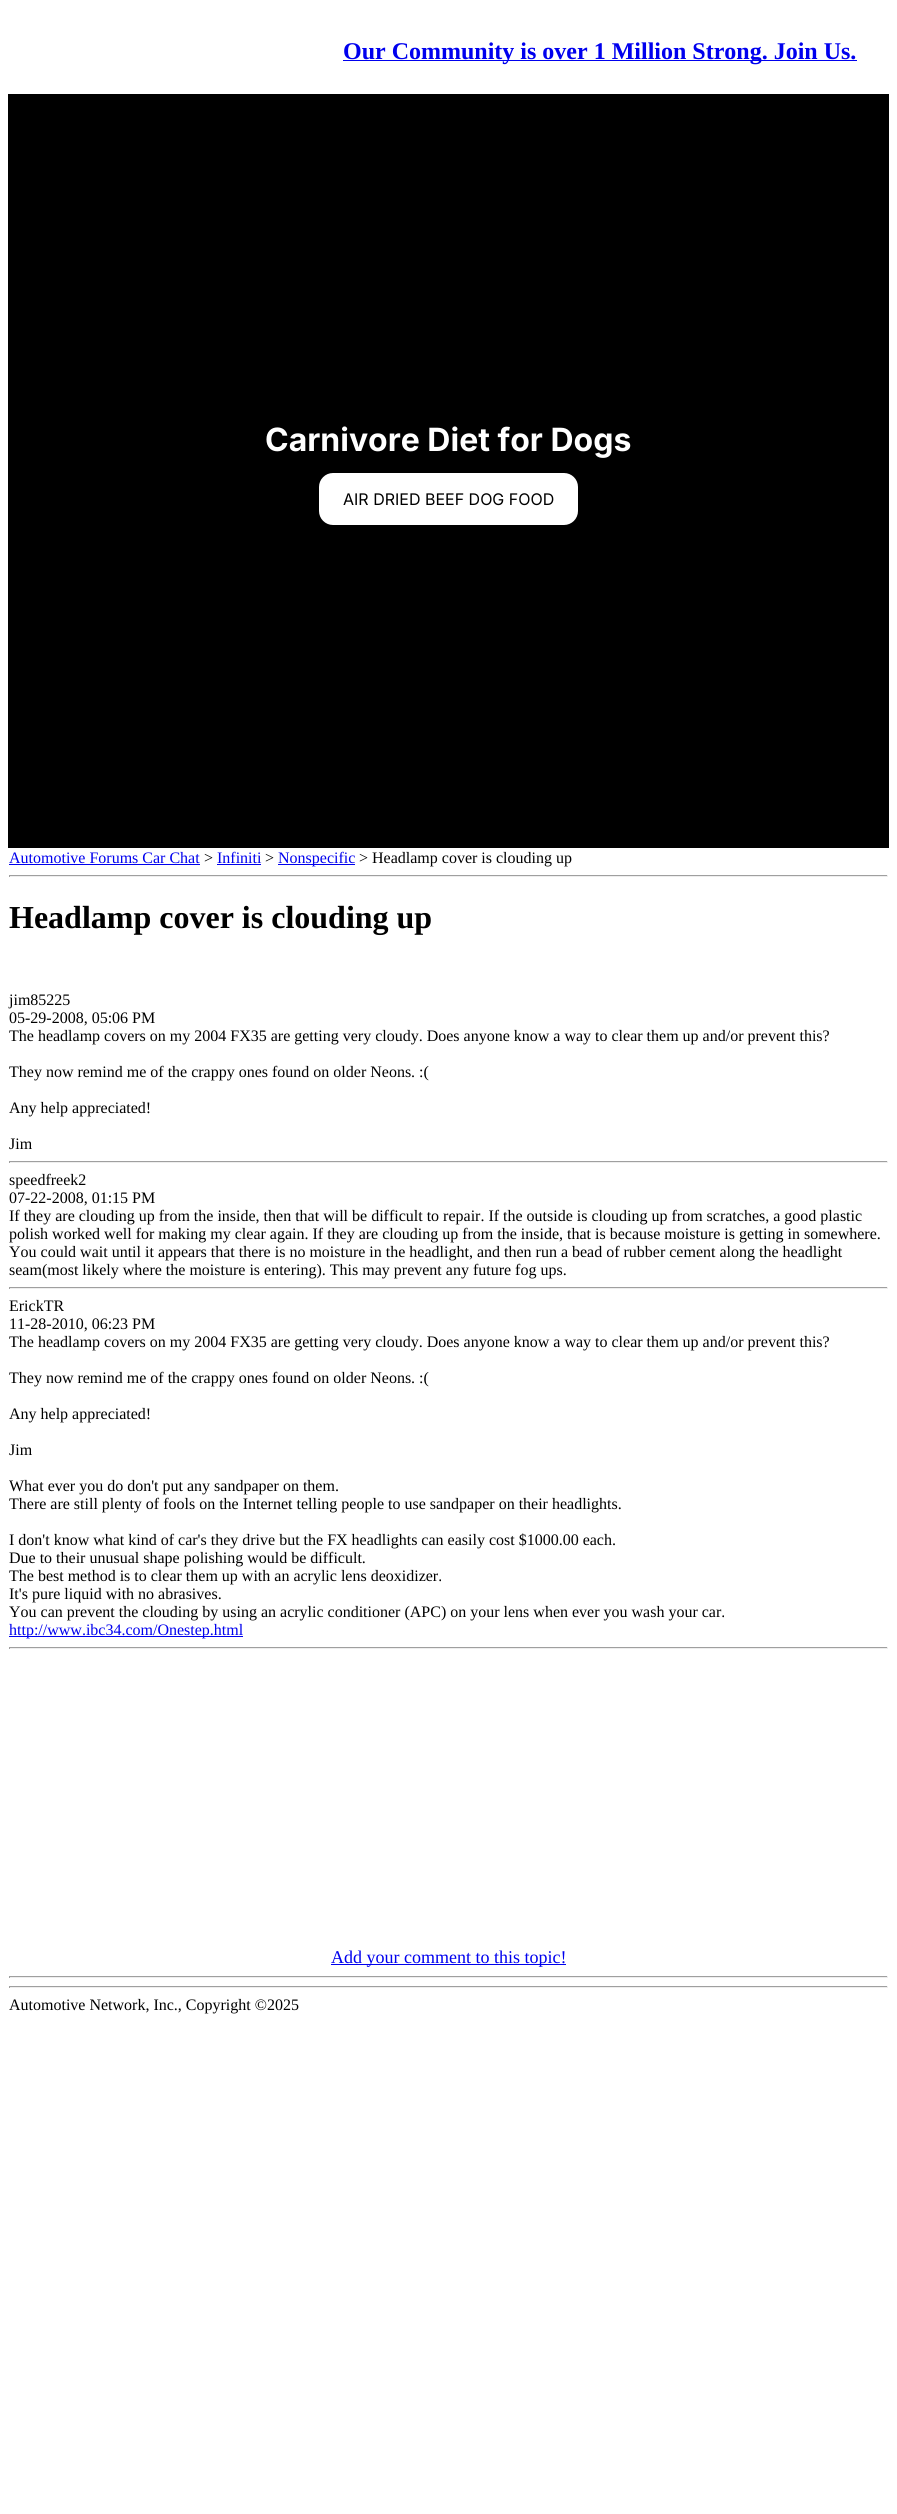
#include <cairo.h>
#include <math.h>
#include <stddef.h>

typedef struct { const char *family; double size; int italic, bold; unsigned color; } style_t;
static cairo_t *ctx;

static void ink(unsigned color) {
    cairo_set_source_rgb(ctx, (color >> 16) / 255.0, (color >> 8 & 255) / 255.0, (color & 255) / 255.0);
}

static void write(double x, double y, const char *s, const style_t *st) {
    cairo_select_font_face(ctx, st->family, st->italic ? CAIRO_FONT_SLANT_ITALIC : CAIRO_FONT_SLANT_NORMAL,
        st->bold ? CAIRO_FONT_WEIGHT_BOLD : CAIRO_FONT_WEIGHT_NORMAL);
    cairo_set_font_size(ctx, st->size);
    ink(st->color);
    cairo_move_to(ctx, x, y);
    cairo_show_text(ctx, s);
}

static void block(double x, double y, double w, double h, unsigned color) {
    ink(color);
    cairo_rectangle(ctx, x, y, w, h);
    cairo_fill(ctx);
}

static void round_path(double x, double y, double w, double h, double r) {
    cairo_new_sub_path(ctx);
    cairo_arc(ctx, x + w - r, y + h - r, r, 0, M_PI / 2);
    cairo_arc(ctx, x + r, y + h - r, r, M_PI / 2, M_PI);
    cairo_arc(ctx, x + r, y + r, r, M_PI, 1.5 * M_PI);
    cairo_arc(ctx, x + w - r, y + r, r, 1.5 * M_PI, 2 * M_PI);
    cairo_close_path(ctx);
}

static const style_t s1 = {"Liberation Serif", 24, 0, 1, 0x0000ee};
static const style_t s2 = {"Inter", 32, 0, 1, 0xffffff};
static const style_t s3 = {"Inter", 16, 0, 0, 0x000000};
static const style_t s4 = {"Liberation Serif", 16, 0, 0, 0x0000ee};
static const style_t s5 = {"Liberation Serif", 16, 0, 0, 0x000000};
static const style_t s6 = {"Liberation Serif", 32, 0, 1, 0x000000};
static const style_t s7 = {"Liberation Serif", 18, 0, 0, 0x0000ee};

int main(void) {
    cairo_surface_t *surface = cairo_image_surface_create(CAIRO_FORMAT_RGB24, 897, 2514);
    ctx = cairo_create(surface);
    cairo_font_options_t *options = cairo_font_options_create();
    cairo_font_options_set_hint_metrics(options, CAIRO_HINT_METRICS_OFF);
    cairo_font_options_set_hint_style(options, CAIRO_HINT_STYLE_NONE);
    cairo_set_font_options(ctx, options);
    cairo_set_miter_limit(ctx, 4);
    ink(0xffffff);
    cairo_paint(ctx);
    block(343, 60, 514, 1, 0x0000ee);
    write(343, 59, "Our Community is over 1 Million Strong. Join Us.", &s1);
    block(8, 94, 881, 754, 0x000000);
    write(265, 451, "Carnivore Diet for Dogs", &s2);
    round_path(319, 473, 259, 52, 14);
    cairo_fill(ctx);
    write(343, 505, "AIR DRIED BEEF DOG FOOD", &s3);
    write(9, 863, "Automotive Forums Car Chat", &s4);
    block(9, 864, 191, 1, 0x0000ee);
    write(204, 863, ">", &s5);
    write(217, 863, "Infiniti", &s4);
    block(217, 864, 44, 1, 0x0000ee);
    write(265, 863, ">", &s5);
    block(278, 864, 77, 1, 0x0000ee);
    write(278, 863, "Nonspecific", &s4);
    write(359, 863, "> Headlamp cover is clouding up", &s5);
    block(9, 875, 879, 1, 0x9f9f9f);
    block(887, 875, 1, 2, 0xeeeeee);
    block(9, 876, 879, 1, 0xeeeeee);
    block(9, 875, 1, 2, 0x9f9f9f);
    write(9, 928, "Headlamp cover is clouding up", &s6);
    write(9, 1005, "jim85225", &s5);
    write(9, 1023, "05-29-2008, 05:06 PM", &s5);
    write(9, 1041, "The headlamp covers on my 2004 FX35 are getting very cloudy. Does anyone know a way to clear them up and/or prevent this?", &s5);
    write(9, 1077, "They now remind me of the crappy ones found on older Neons. :(", &s5);
    write(9, 1113, "Any help appreciated!", &s5);
    write(9, 1149, "Jim", &s5);
    block(9, 1161, 879, 1, 0x9f9f9f);
    block(887, 1161, 1, 2, 0xeeeeee);
    block(9, 1162, 879, 1, 0xeeeeee);
    block(9, 1161, 1, 2, 0x9f9f9f);
    write(9, 1185, "speedfreek2", &s5);
    write(9, 1203, "07-22-2008, 01:15 PM", &s5);
    write(9, 1221, "If they are clouding up from the inside, then that will be difficult to repair. If the outside is clouding up from scratches, a good plastic", &s5);
    write(9, 1239, "polish worked well for making my clear again. If they are clouding up from the inside, that is because moisture is getting in somewhere.", &s5);
    write(9, 1257, "You could wait until it appears that there is no moisture in the headlight, and then run a bead of rubber cement along the headlight", &s5);
    write(9, 1275, "seam(most likely where the moisture is entering). This may prevent any future fog ups.", &s5);
    block(9, 1287, 879, 1, 0x9f9f9f);
    block(887, 1287, 1, 2, 0xeeeeee);
    block(9, 1288, 879, 1, 0xeeeeee);
    block(9, 1287, 1, 2, 0x9f9f9f);
    write(9, 1311, "ErickTR", &s5);
    write(9, 1329, "11-28-2010, 06:23 PM", &s5);
    write(9, 1347, "The headlamp covers on my 2004 FX35 are getting very cloudy. Does anyone know a way to clear them up and/or prevent this?", &s5);
    write(9, 1383, "They now remind me of the crappy ones found on older Neons. :(", &s5);
    write(9, 1419, "Any help appreciated!", &s5);
    write(9, 1455, "Jim", &s5);
    write(9, 1491, "What ever you do don't put any sandpaper on them.", &s5);
    write(9, 1509, "There are still plenty of fools on the Internet telling people to use sandpaper on their headlights.", &s5);
    write(9, 1545, "I don't know what kind of car's they drive but the FX headlights can easily cost $1000.00 each.", &s5);
    write(9, 1563, "Due to their unusual shape polishing would be difficult.", &s5);
    write(9, 1581, "The best method is to clear them up with an acrylic lens deoxidizer.", &s5);
    write(9, 1599, "It's pure liquid with no abrasives.", &s5);
    write(9, 1617, "You can prevent the clouding by using an acrylic conditioner (APC) on your lens when ever you wash your car.", &s5);
    block(9, 1636, 234, 1, 0x0000ee);
    write(9, 1635, "http://www.ibc34.com/Onestep.html", &s4);
    block(9, 1647, 879, 1, 0x9f9f9f);
    block(887, 1647, 1, 2, 0xeeeeee);
    block(9, 1648, 879, 1, 0xeeeeee);
    block(9, 1647, 1, 2, 0x9f9f9f);
    block(331, 1964, 235, 1, 0x0000ee);
    write(331, 1963, "Add your comment to this topic!", &s7);
    block(9, 1976, 879, 1, 0x9f9f9f);
    block(887, 1976, 1, 2, 0xeeeeee);
    block(9, 1977, 879, 1, 0xeeeeee);
    block(9, 1976, 1, 2, 0x9f9f9f);
    block(9, 1986, 879, 1, 0x9f9f9f);
    block(887, 1986, 1, 2, 0xeeeeee);
    block(9, 1987, 879, 1, 0xeeeeee);
    block(9, 1986, 1, 2, 0x9f9f9f);
    write(9, 2010, "Automotive Network, Inc., Copyright ©2025", &s5);
    cairo_surface_write_to_png(surface, "screenshot.png");
    cairo_font_options_destroy(options);
    cairo_destroy(ctx);
    cairo_surface_destroy(surface);
    return 0;
}
